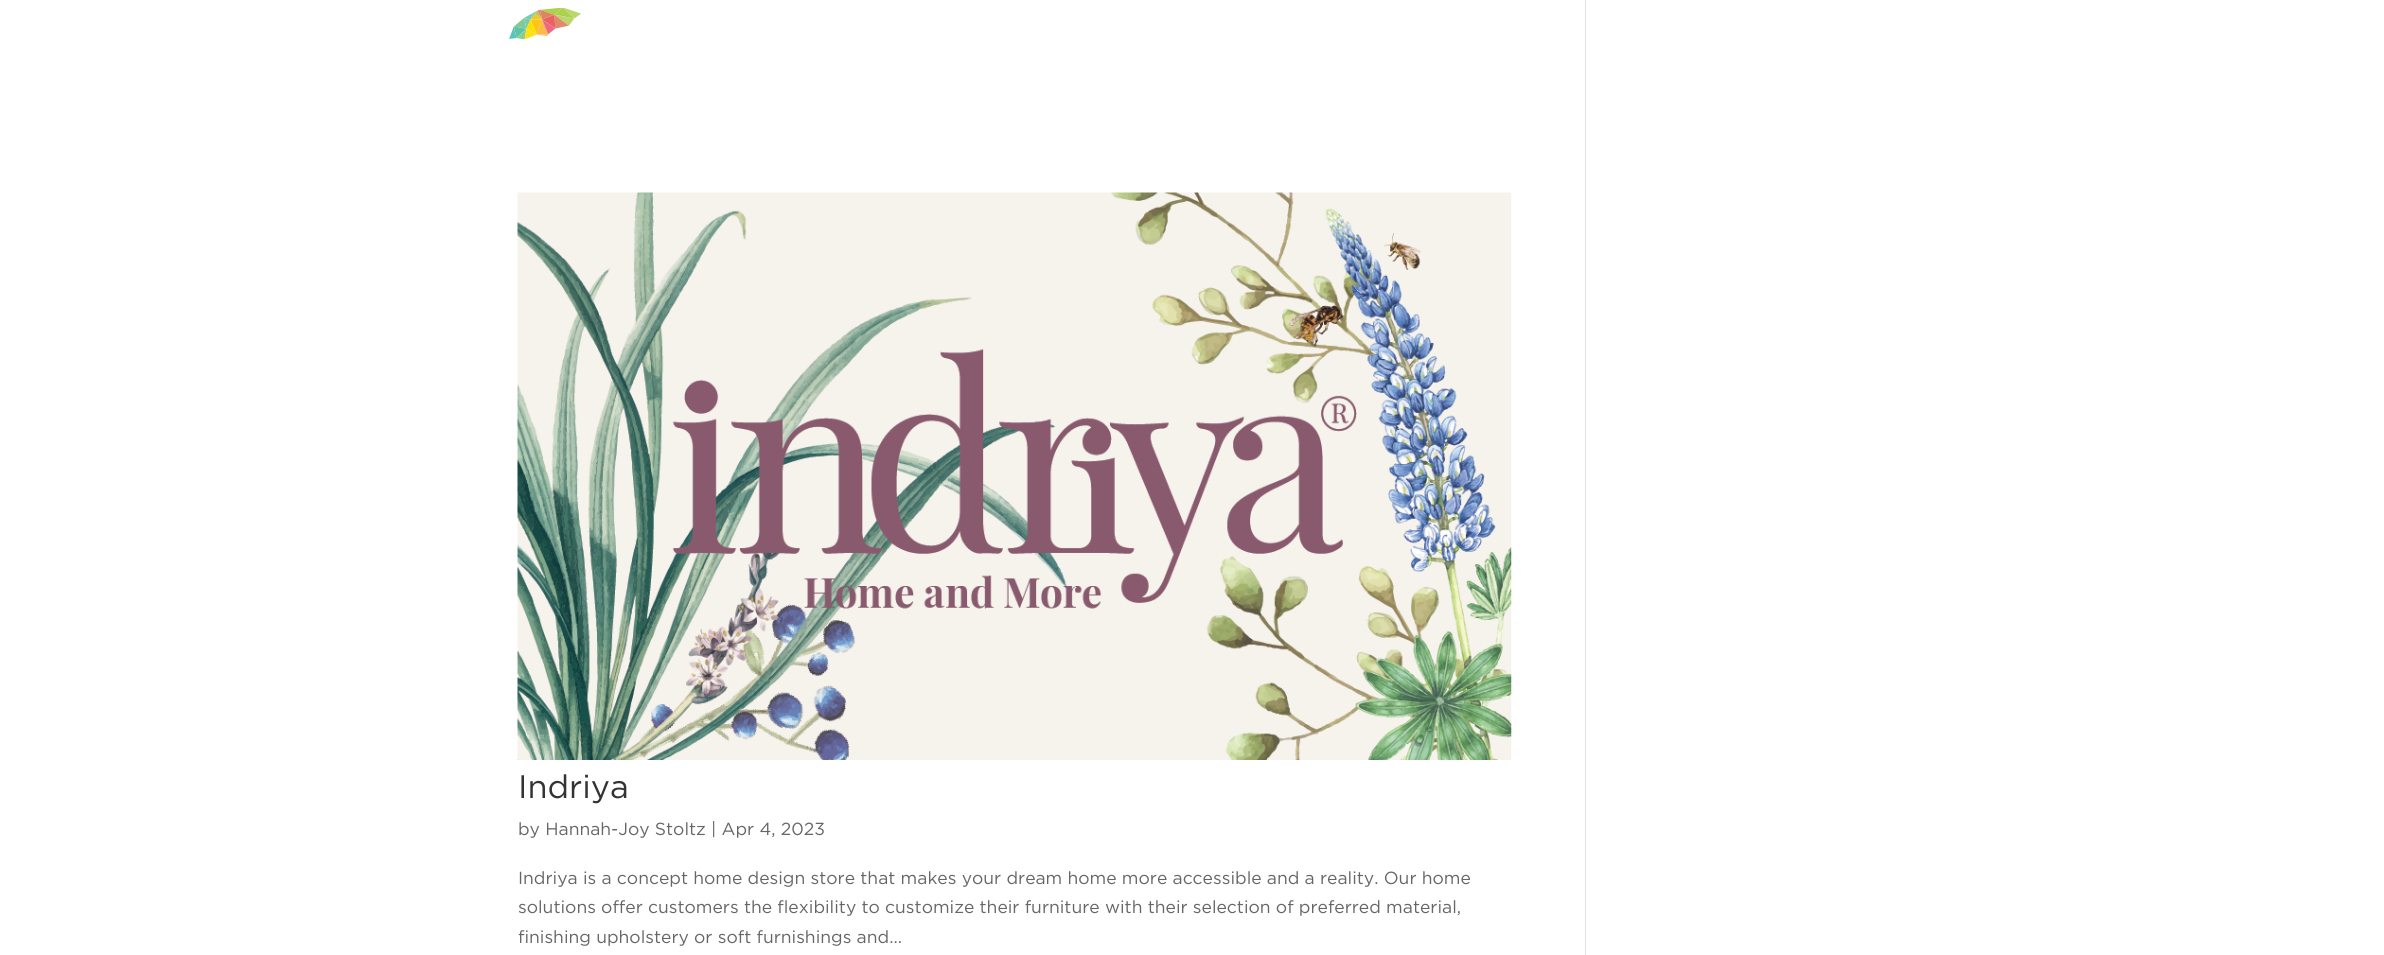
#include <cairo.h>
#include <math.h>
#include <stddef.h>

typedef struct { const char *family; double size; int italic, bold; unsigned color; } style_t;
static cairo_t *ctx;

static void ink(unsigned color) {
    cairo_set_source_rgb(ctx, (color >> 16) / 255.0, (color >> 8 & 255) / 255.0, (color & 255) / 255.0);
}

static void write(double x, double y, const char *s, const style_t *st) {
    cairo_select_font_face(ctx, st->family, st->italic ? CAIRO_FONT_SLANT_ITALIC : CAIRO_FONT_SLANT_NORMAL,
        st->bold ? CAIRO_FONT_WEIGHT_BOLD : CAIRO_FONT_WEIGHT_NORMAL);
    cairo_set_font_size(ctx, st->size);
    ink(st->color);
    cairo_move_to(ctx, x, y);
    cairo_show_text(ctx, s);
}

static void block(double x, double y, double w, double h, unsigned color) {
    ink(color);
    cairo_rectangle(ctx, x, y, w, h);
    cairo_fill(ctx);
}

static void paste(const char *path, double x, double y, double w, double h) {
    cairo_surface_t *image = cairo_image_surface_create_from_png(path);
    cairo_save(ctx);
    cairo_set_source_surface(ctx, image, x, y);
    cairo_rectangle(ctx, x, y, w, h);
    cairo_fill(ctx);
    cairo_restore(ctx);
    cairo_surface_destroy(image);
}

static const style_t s1 = {"Gotham", 32.5, 0, 0, 0x333333};
static const style_t s2 = {"Gotham", 17.5, 0, 0, 0x666666};

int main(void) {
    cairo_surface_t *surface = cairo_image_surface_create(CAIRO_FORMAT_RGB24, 2384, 955);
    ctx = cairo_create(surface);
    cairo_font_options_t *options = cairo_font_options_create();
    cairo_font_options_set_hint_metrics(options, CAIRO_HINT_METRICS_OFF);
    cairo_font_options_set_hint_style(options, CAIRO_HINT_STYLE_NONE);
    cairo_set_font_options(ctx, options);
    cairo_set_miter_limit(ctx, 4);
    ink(0xffffff);
    cairo_paint(ctx);
    paste("pic1.png", 509, 8, 72, 32);
    paste("pic2.png", 517, 192, 995, 568);
    write(518, 798, "Indriya", &s1);
    write(518, 835, "by Hannah-Joy Stoltz | Apr 4, 2023", &s2);
    write(518, 884, "Indriya is a concept home design store that makes your dream home more accessible and a reality. Our home", &s2);
    write(518, 913, "solutions offer customers the flexibility to customize their furniture with their selection of preferred material,", &s2);
    write(518, 943, "finishing upholstery or soft furnishings and...", &s2);
    block(1585, 0, 1, 955, 0xe2e2e2);
    cairo_surface_write_to_png(surface, "screenshot.png");
    cairo_font_options_destroy(options);
    cairo_destroy(ctx);
    cairo_surface_destroy(surface);
    return 0;
}
